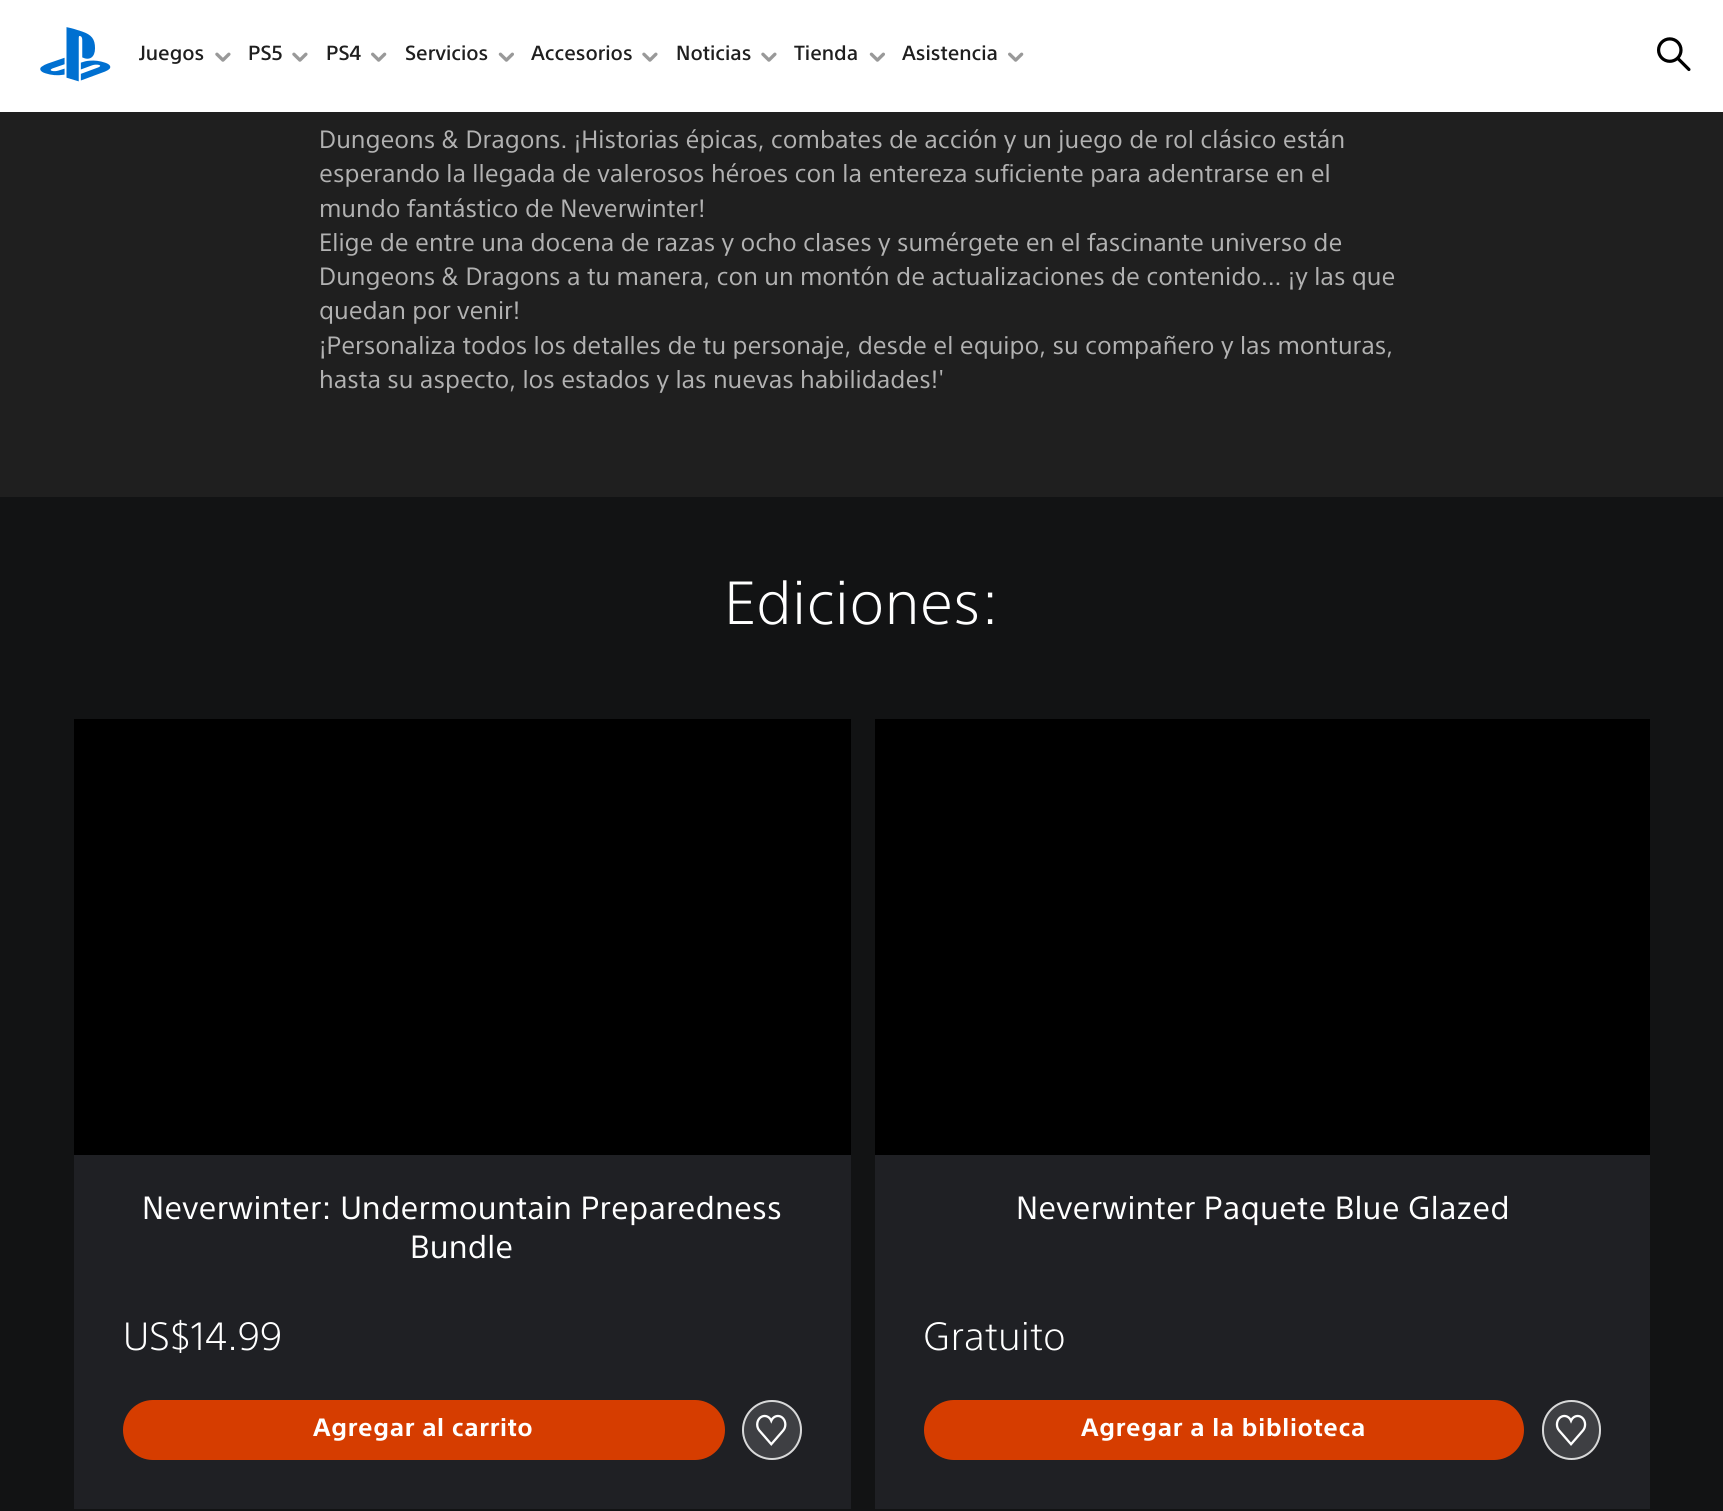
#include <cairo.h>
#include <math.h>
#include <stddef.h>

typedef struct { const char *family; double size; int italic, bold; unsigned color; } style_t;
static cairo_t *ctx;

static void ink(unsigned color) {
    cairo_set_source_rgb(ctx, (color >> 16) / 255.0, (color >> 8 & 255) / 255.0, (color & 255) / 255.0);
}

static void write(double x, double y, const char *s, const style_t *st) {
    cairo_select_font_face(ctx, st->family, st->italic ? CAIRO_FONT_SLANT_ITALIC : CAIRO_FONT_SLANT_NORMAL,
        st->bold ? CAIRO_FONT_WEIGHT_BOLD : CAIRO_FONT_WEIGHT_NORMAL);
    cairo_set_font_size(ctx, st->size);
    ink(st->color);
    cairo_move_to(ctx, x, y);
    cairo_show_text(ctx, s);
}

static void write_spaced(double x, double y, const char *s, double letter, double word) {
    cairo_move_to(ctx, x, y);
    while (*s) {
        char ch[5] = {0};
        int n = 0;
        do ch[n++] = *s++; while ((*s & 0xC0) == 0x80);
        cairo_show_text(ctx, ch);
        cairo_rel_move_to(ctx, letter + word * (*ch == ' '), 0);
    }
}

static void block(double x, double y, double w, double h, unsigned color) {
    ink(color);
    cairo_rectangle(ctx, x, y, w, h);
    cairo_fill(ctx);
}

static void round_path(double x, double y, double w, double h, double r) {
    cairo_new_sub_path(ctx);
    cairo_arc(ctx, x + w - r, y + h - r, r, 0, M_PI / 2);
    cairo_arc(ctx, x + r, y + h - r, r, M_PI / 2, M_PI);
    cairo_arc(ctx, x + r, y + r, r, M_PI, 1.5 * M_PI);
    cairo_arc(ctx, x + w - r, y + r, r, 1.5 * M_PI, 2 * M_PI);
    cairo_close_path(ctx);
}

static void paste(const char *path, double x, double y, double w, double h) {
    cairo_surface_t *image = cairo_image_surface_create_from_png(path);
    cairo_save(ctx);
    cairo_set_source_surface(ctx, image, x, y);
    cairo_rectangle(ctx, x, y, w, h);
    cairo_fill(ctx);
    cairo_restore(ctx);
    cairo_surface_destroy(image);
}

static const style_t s1 = {"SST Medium", 20, 0, 0, 0x1f1f1f};
static const style_t s2 = {"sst", 24.5, 0, 0, 0xb2b2b2};

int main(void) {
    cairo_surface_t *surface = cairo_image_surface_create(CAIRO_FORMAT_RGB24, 1723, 1511);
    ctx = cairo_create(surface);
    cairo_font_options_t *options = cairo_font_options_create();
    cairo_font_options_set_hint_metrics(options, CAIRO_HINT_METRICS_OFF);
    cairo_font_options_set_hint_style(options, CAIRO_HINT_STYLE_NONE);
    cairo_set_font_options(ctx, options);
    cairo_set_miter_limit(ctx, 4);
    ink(0x1f1f1f);
    cairo_paint(ctx);
    block(0, 0, 1723, 112, 0xffffff);
    paste("pic1.png", 40, 27, 71, 55);
    write(139, 60, "Juegos", &s1);
    paste("pic2.png", 215, 52, 16, 10);
    write(248, 60, "PS5", &s1);
    paste("pic2.png", 292, 52, 16, 10);
    write(326, 60, "PS4", &s1);
    paste("pic3.png", 371, 52, 16, 10);
    write(405, 60, "Servicios", &s1);
    paste("pic4.png", 498, 52, 16, 10);
    write(531, 60, "Accesorios", &s1);
    paste("pic2.png", 642, 52, 16, 10);
    write(676, 60, "Noticias", &s1);
    paste("pic2.png", 761, 52, 16, 10);
    write(794, 60, "Tienda", &s1);
    paste("pic4.png", 869, 52, 16, 10);
    write(902, 60, "Asistencia", &s1);
    paste("pic3.png", 1008, 52, 16, 10);
    paste("pic5.png", 1657, 37, 34, 35);
    write(319, 148, "Dungeons & Dragons. ¡Historias épicas, combates de acción y un juego de rol clásico están", &s2);
    write(319, 182, "esperando la llegada de valerosos héroes con la entereza suficiente para adentrarse en el", &s2);
    write(319, 217, "mundo fantástico de Neverwinter!", &s2);
    write(319, 251, "Elige de entre una docena de razas y ocho clases y sumérgete en el fascinante universo de", &s2);
    write(319, 285, "Dungeons & Dragons a tu manera, con un montón de actualizaciones de contenido... ¡y las que", &s2);
    write(319, 319, "quedan por venir!", &s2);
    write(319, 354, "¡Personaliza todos los detalles de tu personaje, desde el equipo, su compañero y las monturas,", &s2);
    write(319, 388, "hasta su aspecto, los estados y las nuevas habilidades!'", &s2);
    block(0, 497, 1723, 1014, 0x121314);
    cairo_select_font_face(ctx, "sst Light", CAIRO_FONT_SLANT_NORMAL, CAIRO_FONT_WEIGHT_NORMAL);
    cairo_set_font_size(ctx, 59.5);
    ink(0xffffff);
    write_spaced(724, 624, "Ediciones:", 0.2, 0);
    block(74, 1155, 777, 354, 0x1f2024);
    block(74, 719, 777, 436, 0x000000);
    cairo_select_font_face(ctx, "sst", CAIRO_FONT_SLANT_NORMAL, CAIRO_FONT_WEIGHT_NORMAL);
    cairo_set_font_size(ctx, 31.5);
    ink(0xffffff);
    write_spaced(142, 1219, "Neverwinter: Undermountain Preparedness", 0.2, 0);
    write_spaced(410, 1258, "Bundle", 0.2, 0);
    cairo_select_font_face(ctx, "sst Light", CAIRO_FONT_SLANT_NORMAL, CAIRO_FONT_WEIGHT_NORMAL);
    cairo_set_font_size(ctx, 38.5);
    write_spaced(123, 1350, "US$14.99", 0.2, 0);
    ink(0xd63d00);
    round_path(123, 1400, 602, 60, 30);
    cairo_fill(ctx);
    cairo_select_font_face(ctx, "sst", CAIRO_FONT_SLANT_NORMAL, CAIRO_FONT_WEIGHT_BOLD);
    cairo_set_font_size(ctx, 24.5);
    ink(0xffffff);
    write_spaced(313, 1436, "Agregar al carrito", 0.7, 0);
    ink(0x3e3f43);
    cairo_new_path(ctx);
    cairo_arc(ctx, 772, 1430, 30, 0, 2 * M_PI);
    cairo_fill(ctx);
    cairo_arc(ctx, 772, 1430, 29, 0, 2 * M_PI);
    cairo_set_source_rgba(ctx, 1, 1, 1, 0.8);
    cairo_stroke(ctx);
    paste("pic6.png", 756, 1414, 31, 32);
    block(875, 1155, 775, 354, 0x1f2024);
    block(875, 719, 775, 436, 0x000000);
    cairo_select_font_face(ctx, "sst", CAIRO_FONT_SLANT_NORMAL, CAIRO_FONT_WEIGHT_NORMAL);
    cairo_set_font_size(ctx, 31.5);
    ink(0xffffff);
    write_spaced(1016, 1219, "Neverwinter Paquete Blue Glazed", 0.2, 0);
    cairo_select_font_face(ctx, "sst Light", CAIRO_FONT_SLANT_NORMAL, CAIRO_FONT_WEIGHT_NORMAL);
    cairo_set_font_size(ctx, 38.5);
    write_spaced(923, 1350, "Gratuito", 0.2, 0);
    ink(0xd63d00);
    round_path(924, 1400, 600, 60, 30);
    cairo_fill(ctx);
    cairo_select_font_face(ctx, "sst", CAIRO_FONT_SLANT_NORMAL, CAIRO_FONT_WEIGHT_BOLD);
    cairo_set_font_size(ctx, 24.5);
    ink(0xffffff);
    write_spaced(1081, 1436, "Agregar a la biblioteca", 0.7, 0);
    ink(0x3e3f43);
    round_path(1542, 1400, 59, 60, 29.5);
    cairo_fill(ctx);
    round_path(1543, 1401, 57, 58, 28.5);
    cairo_set_source_rgba(ctx, 1, 1, 1, 0.8);
    cairo_stroke(ctx);
    paste("pic7.png", 1555, 1414, 32, 32);
    cairo_surface_write_to_png(surface, "screenshot.png");
    cairo_font_options_destroy(options);
    cairo_destroy(ctx);
    cairo_surface_destroy(surface);
    return 0;
}
